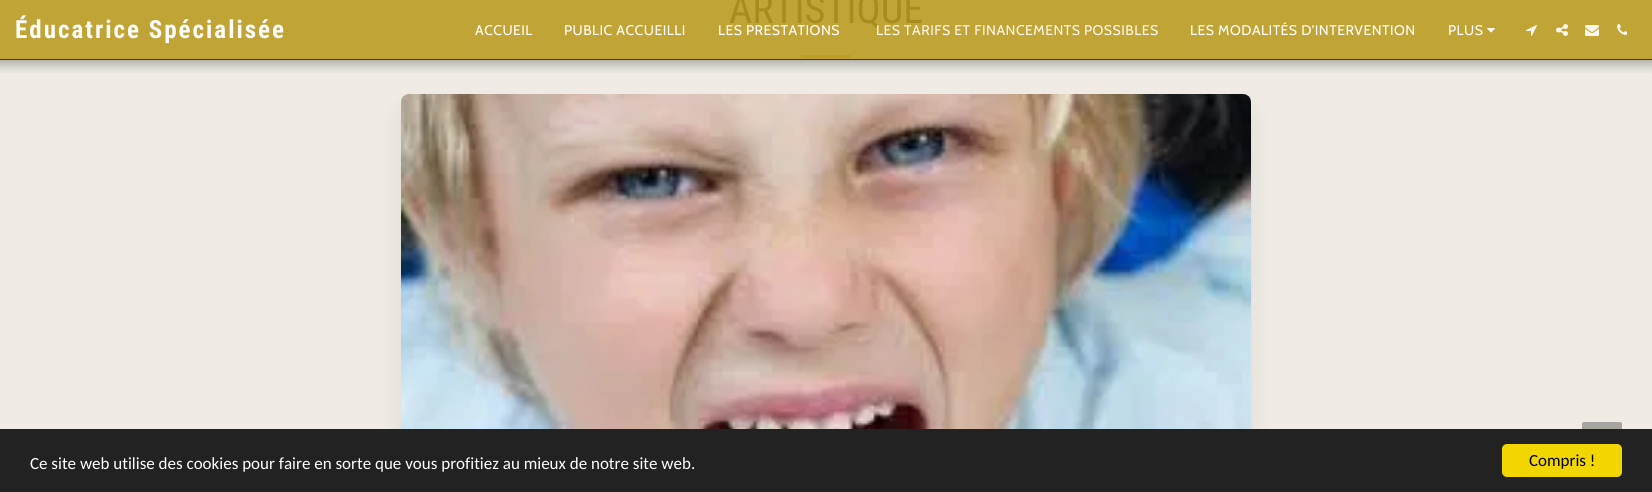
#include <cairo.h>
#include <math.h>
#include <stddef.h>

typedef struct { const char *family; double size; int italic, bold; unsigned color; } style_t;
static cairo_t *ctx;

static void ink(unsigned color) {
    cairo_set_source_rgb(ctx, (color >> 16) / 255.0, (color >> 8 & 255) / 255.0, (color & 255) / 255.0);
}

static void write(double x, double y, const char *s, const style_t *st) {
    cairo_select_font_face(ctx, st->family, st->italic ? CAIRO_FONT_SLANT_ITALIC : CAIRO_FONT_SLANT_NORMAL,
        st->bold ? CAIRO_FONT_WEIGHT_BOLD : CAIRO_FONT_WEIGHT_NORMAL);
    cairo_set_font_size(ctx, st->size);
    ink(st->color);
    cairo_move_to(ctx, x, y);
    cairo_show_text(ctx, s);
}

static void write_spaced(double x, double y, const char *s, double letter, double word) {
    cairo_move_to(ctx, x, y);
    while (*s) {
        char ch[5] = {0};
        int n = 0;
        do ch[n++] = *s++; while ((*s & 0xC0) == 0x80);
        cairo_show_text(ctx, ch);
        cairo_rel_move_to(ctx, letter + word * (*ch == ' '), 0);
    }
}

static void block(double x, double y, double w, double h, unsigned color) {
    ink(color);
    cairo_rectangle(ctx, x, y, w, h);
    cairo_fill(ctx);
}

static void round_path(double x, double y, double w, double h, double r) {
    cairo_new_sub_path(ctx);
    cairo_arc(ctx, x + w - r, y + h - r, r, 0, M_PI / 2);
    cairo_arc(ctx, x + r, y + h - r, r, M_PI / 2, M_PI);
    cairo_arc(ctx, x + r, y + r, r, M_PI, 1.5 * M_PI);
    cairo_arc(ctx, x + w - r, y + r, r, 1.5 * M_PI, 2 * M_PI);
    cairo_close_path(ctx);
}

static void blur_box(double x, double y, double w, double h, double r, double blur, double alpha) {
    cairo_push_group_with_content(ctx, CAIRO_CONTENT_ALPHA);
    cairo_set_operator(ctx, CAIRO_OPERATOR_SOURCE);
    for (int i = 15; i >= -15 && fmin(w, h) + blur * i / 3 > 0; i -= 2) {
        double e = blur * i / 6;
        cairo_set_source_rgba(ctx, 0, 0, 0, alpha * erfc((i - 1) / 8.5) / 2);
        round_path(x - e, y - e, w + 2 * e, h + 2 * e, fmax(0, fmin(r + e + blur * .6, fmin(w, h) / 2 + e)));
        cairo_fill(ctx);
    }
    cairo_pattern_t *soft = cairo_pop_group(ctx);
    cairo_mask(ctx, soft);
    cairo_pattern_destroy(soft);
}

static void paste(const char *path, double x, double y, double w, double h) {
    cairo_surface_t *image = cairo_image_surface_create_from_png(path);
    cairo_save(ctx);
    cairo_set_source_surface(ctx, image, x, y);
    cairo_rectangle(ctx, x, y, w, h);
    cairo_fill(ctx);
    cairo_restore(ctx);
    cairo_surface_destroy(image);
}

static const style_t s1 = {"Roboto Condensed", 40.25, 0, 0, 0xa98c1f};
static const style_t s2 = {"Carlito", 17, 0, 0, 0xfefdfc};
static const style_t s3 = {"Carlito", 17, 0, 0, 0x000000};

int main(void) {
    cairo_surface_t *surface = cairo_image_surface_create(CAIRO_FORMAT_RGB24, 1652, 492);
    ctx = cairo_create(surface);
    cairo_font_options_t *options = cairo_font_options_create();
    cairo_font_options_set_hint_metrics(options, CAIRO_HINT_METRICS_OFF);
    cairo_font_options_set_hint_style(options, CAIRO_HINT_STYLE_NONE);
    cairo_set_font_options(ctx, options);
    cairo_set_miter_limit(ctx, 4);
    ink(0xf0ece5);
    cairo_paint(ctx);
    block(0, 0, 1652, 59, 0xc1a436);
    write(729, 23, "ARTISTIQUE", &s1);
    block(801, 55, 50, 3, 0xbc9c22);
    ink(0x000000);
    blur_box(401, 109, 850, 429, 8, 12.5, 0.08);
    paste("pic1.png", 401, 94, 850, 335);
    cairo_save(ctx);
    cairo_rectangle(ctx, 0, 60, 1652, 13);
    cairo_clip(ctx);
    ink(0x181817);
    blur_box(-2, 0, 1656, 64, 0, 6, 0.35);
    cairo_restore(ctx);
    block(0, 59, 1652, 1, 0x49303b);
    cairo_select_font_face(ctx, "Roboto Condensed", CAIRO_FONT_SLANT_NORMAL, CAIRO_FONT_WEIGHT_BOLD);
    cairo_set_font_size(ctx, 25);
    ink(0xfefdfc);
    write_spaced(15, 38, "Éducatrice Spécialisée", 2, 0);
    cairo_select_font_face(ctx, "Cabin", CAIRO_FONT_SLANT_NORMAL, CAIRO_FONT_WEIGHT_NORMAL);
    cairo_set_font_size(ctx, 14);
    write_spaced(475, 35, "ACCUEIL", 0.5, 0);
    write_spaced(564, 35, "PUBLIC ACCUEILLI", 0.5, 0);
    write_spaced(718, 35, "LES PRESTATIONS", 0.5, 0);
    ink(0xf9f6eb);
    write_spaced(876, 35, "LES TARIFS ET FINANCEMENTS POSSIBLES", 0.5, 0);
    ink(0xfefdfc);
    write_spaced(1190, 35, "LES MODALITÉS D'INTERVENTION", 0.5, 0);
    write_spaced(1448, 35, "PLUS", 0.5, 0);
    paste("pic2.png", 1487, 28, 8, 5);
    paste("pic3.png", 1526, 25, 11, 11);
    paste("pic4.png", 1556, 24, 12, 12);
    paste("pic5.png", 1585, 25, 14, 11);
    paste("pic6.png", 1617, 24, 10, 11);
    ink(0xa8a5a0);
    round_path(1582, 422, 40, 40, 2);
    cairo_fill(ctx);
    block(0, 429, 1652, 63, 0x222222);
    write(30, 469, "Ce site web utilise des cookies pour faire en sorte que vous profitiez au mieux de notre site web.", &s2);
    ink(0xf1d600);
    round_path(1502, 444, 120, 33, 5);
    cairo_fill(ctx);
    write(1529, 466, "Compris !", &s3);
    cairo_surface_write_to_png(surface, "screenshot.png");
    cairo_font_options_destroy(options);
    cairo_destroy(ctx);
    cairo_surface_destroy(surface);
    return 0;
}
